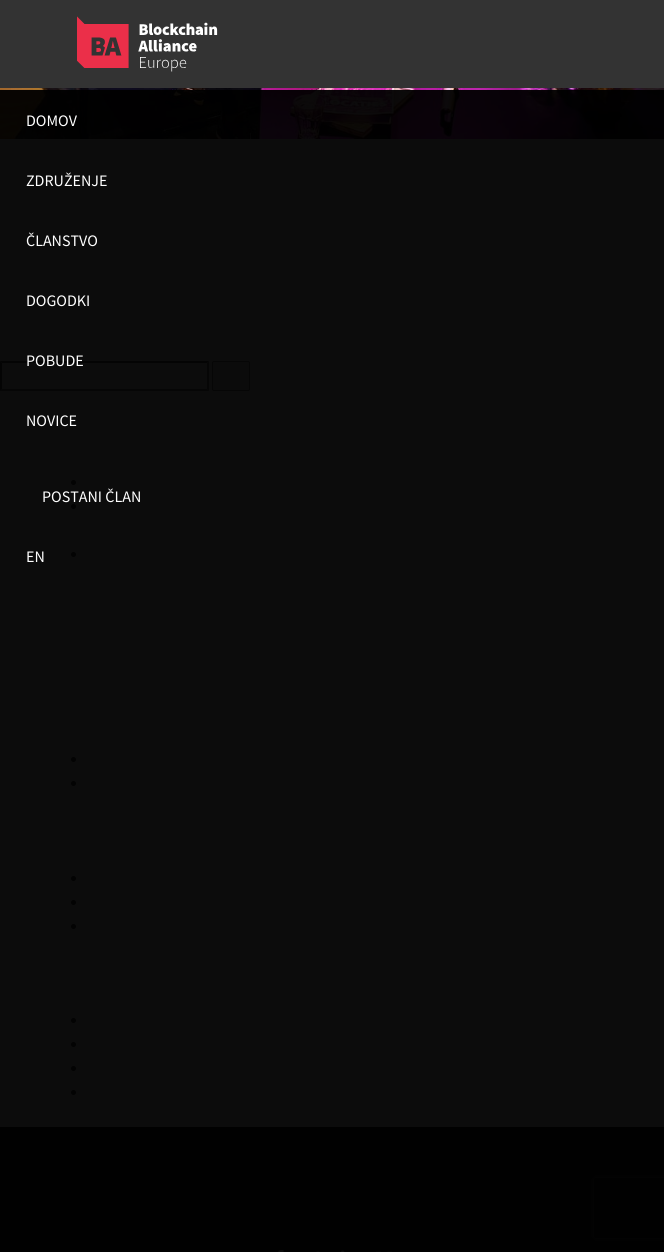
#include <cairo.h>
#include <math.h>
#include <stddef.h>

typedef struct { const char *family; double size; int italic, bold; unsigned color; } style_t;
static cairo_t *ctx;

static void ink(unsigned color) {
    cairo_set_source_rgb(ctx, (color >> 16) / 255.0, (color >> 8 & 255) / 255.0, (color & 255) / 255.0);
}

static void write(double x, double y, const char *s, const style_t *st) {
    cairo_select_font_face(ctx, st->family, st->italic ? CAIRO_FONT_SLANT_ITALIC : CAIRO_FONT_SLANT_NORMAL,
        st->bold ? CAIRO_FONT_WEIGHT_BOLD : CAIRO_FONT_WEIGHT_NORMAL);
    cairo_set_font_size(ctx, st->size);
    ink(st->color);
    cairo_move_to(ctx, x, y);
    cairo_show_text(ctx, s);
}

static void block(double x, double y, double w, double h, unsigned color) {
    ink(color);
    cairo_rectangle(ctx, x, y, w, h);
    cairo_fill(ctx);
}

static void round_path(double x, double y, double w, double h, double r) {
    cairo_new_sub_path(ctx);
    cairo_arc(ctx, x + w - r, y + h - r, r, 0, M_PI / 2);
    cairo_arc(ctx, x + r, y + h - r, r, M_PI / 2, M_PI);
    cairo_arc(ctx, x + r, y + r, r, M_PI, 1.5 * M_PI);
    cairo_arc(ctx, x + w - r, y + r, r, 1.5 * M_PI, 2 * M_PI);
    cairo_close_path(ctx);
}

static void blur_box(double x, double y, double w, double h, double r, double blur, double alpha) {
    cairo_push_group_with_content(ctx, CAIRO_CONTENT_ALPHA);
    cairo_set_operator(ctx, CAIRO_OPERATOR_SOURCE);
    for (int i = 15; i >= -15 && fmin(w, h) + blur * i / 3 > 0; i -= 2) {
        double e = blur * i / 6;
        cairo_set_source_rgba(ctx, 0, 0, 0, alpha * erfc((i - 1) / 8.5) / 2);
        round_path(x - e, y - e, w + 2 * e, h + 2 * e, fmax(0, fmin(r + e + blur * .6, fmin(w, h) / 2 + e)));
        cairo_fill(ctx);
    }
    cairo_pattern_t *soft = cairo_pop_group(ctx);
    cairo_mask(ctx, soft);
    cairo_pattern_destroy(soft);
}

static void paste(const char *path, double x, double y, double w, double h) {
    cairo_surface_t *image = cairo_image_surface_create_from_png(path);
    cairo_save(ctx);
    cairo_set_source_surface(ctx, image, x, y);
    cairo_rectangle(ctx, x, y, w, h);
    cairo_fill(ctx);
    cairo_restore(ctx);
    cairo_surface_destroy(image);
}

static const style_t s1 = {"Source Sans Pro", 16, 0, 0, 0xffffff};

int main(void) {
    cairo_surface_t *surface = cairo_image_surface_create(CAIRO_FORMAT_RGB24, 664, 1252);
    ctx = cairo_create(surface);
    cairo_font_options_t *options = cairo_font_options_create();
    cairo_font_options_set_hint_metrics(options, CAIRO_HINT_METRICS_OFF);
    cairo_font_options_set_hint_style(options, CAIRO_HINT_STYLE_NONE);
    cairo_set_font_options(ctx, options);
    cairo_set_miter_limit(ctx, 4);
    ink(0xffffff);
    cairo_paint(ctx);
    paste("pic1.png", 0, 88, 664, 51);
    ink(0x4f4f4f);
    cairo_new_path(ctx);
    cairo_move_to(ctx, 0, 361);
    cairo_line_to(ctx, 209, 361);
    cairo_line_to(ctx, 207, 363);
    cairo_line_to(ctx, 2, 363);
    cairo_close_path(ctx);
    cairo_fill(ctx);
    ink(0x767676);
    cairo_new_path(ctx);
    cairo_move_to(ctx, 209, 361);
    cairo_line_to(ctx, 209, 391);
    cairo_line_to(ctx, 207, 389);
    cairo_line_to(ctx, 207, 363);
    cairo_close_path(ctx);
    cairo_fill(ctx);
    cairo_new_path(ctx);
    cairo_move_to(ctx, 209, 391);
    cairo_line_to(ctx, 0, 391);
    cairo_line_to(ctx, 2, 389);
    cairo_line_to(ctx, 207, 389);
    cairo_close_path(ctx);
    cairo_fill(ctx);
    ink(0x4f4f4f);
    cairo_new_path(ctx);
    cairo_move_to(ctx, 0, 391);
    cairo_line_to(ctx, 0, 361);
    cairo_line_to(ctx, 2, 363);
    cairo_line_to(ctx, 2, 389);
    cairo_close_path(ctx);
    cairo_fill(ctx);
    ink(0xefefef);
    round_path(212.5, 361.5, 37, 29, 1.5);
    cairo_fill_preserve(ctx);
    ink(0x767676);
    cairo_set_line_width(ctx, 1);
    cairo_stroke(ctx);
    ink(0x404040);
    cairo_arc(ctx, 73.5, 482.5, 2.5, 0, 2 * M_PI);
    cairo_fill(ctx);
    cairo_arc(ctx, 73.5, 506.5, 2.5, 0, 2 * M_PI);
    cairo_fill(ctx);
    cairo_arc(ctx, 73.5, 554.5, 2.5, 0, 2 * M_PI);
    cairo_fill(ctx);
    cairo_arc(ctx, 73.5, 759.5, 2.5, 0, 2 * M_PI);
    cairo_fill(ctx);
    cairo_arc(ctx, 73.5, 783.5, 2.5, 0, 2 * M_PI);
    cairo_fill(ctx);
    cairo_arc(ctx, 73.5, 878.5, 2.5, 0, 2 * M_PI);
    cairo_fill(ctx);
    cairo_arc(ctx, 73.5, 902.5, 2.5, 0, 2 * M_PI);
    cairo_fill(ctx);
    cairo_arc(ctx, 73.5, 926.5, 2.5, 0, 2 * M_PI);
    cairo_fill(ctx);
    cairo_arc(ctx, 73.5, 1020.5, 2.5, 0, 2 * M_PI);
    cairo_fill(ctx);
    cairo_arc(ctx, 73.5, 1044.5, 2.5, 0, 2 * M_PI);
    cairo_fill(ctx);
    cairo_arc(ctx, 73.5, 1068.5, 2.5, 0, 2 * M_PI);
    cairo_fill(ctx);
    cairo_arc(ctx, 73.5, 1092.5, 2.5, 0, 2 * M_PI);
    cairo_fill(ctx);
    block(0, 0, 664, 88, 0x333333);
    paste("pic2.png", 77, 16, 141, 56);
    block(0, 1127, 664, 125, 0x111111);
    paste("pic3.png", 277, 1250, 7, 2);
    paste("pic4.png", 316, 1251, 7, 1);
    paste("pic5.png", 341, 1250, 4, 2);
    paste("pic6.png", 376, 1251, 16, 1);
    cairo_save(ctx);
    cairo_set_fill_rule(ctx, CAIRO_FILL_RULE_EVEN_ODD);
    cairo_new_path(ctx);
    cairo_move_to(ctx, 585, 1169);
    cairo_line_to(ctx, 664, 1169);
    cairo_line_to(ctx, 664, 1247);
    cairo_line_to(ctx, 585, 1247);
    cairo_close_path(ctx);
    cairo_move_to(ctx, 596, 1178);
    cairo_line_to(ctx, 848, 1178);
    cairo_curve_to(ctx, 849, 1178, 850, 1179, 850, 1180);
    cairo_line_to(ctx, 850, 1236);
    cairo_curve_to(ctx, 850, 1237, 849, 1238, 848, 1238);
    cairo_line_to(ctx, 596, 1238);
    cairo_curve_to(ctx, 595, 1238, 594, 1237, 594, 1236);
    cairo_line_to(ctx, 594, 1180);
    cairo_curve_to(ctx, 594, 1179, 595, 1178, 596, 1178);
    cairo_close_path(ctx);
    cairo_clip(ctx);
    ink(0x808080);
    blur_box(594, 1178, 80, 60, 2, 2.5, 1);
    cairo_restore(ctx);
    cairo_set_source_rgba(ctx, 0, 0, 0, 0.95);
    cairo_rectangle(ctx, 0, 90, 664, 1162);
    cairo_fill(ctx);
    write(26, 126, "DOMOV", &s1);
    write(26, 186, "ZDRUŽENJE", &s1);
    write(26, 246, "ČLANSTVO", &s1);
    write(26, 306, "DOGODKI", &s1);
    write(26, 366, "POBUDE", &s1);
    write(26, 426, "NOVICE", &s1);
    write(42, 502, "POSTANI ČLAN", &s1);
    write(26, 562, "EN", &s1);
    cairo_surface_write_to_png(surface, "screenshot.png");
    cairo_font_options_destroy(options);
    cairo_destroy(ctx);
    cairo_surface_destroy(surface);
    return 0;
}
